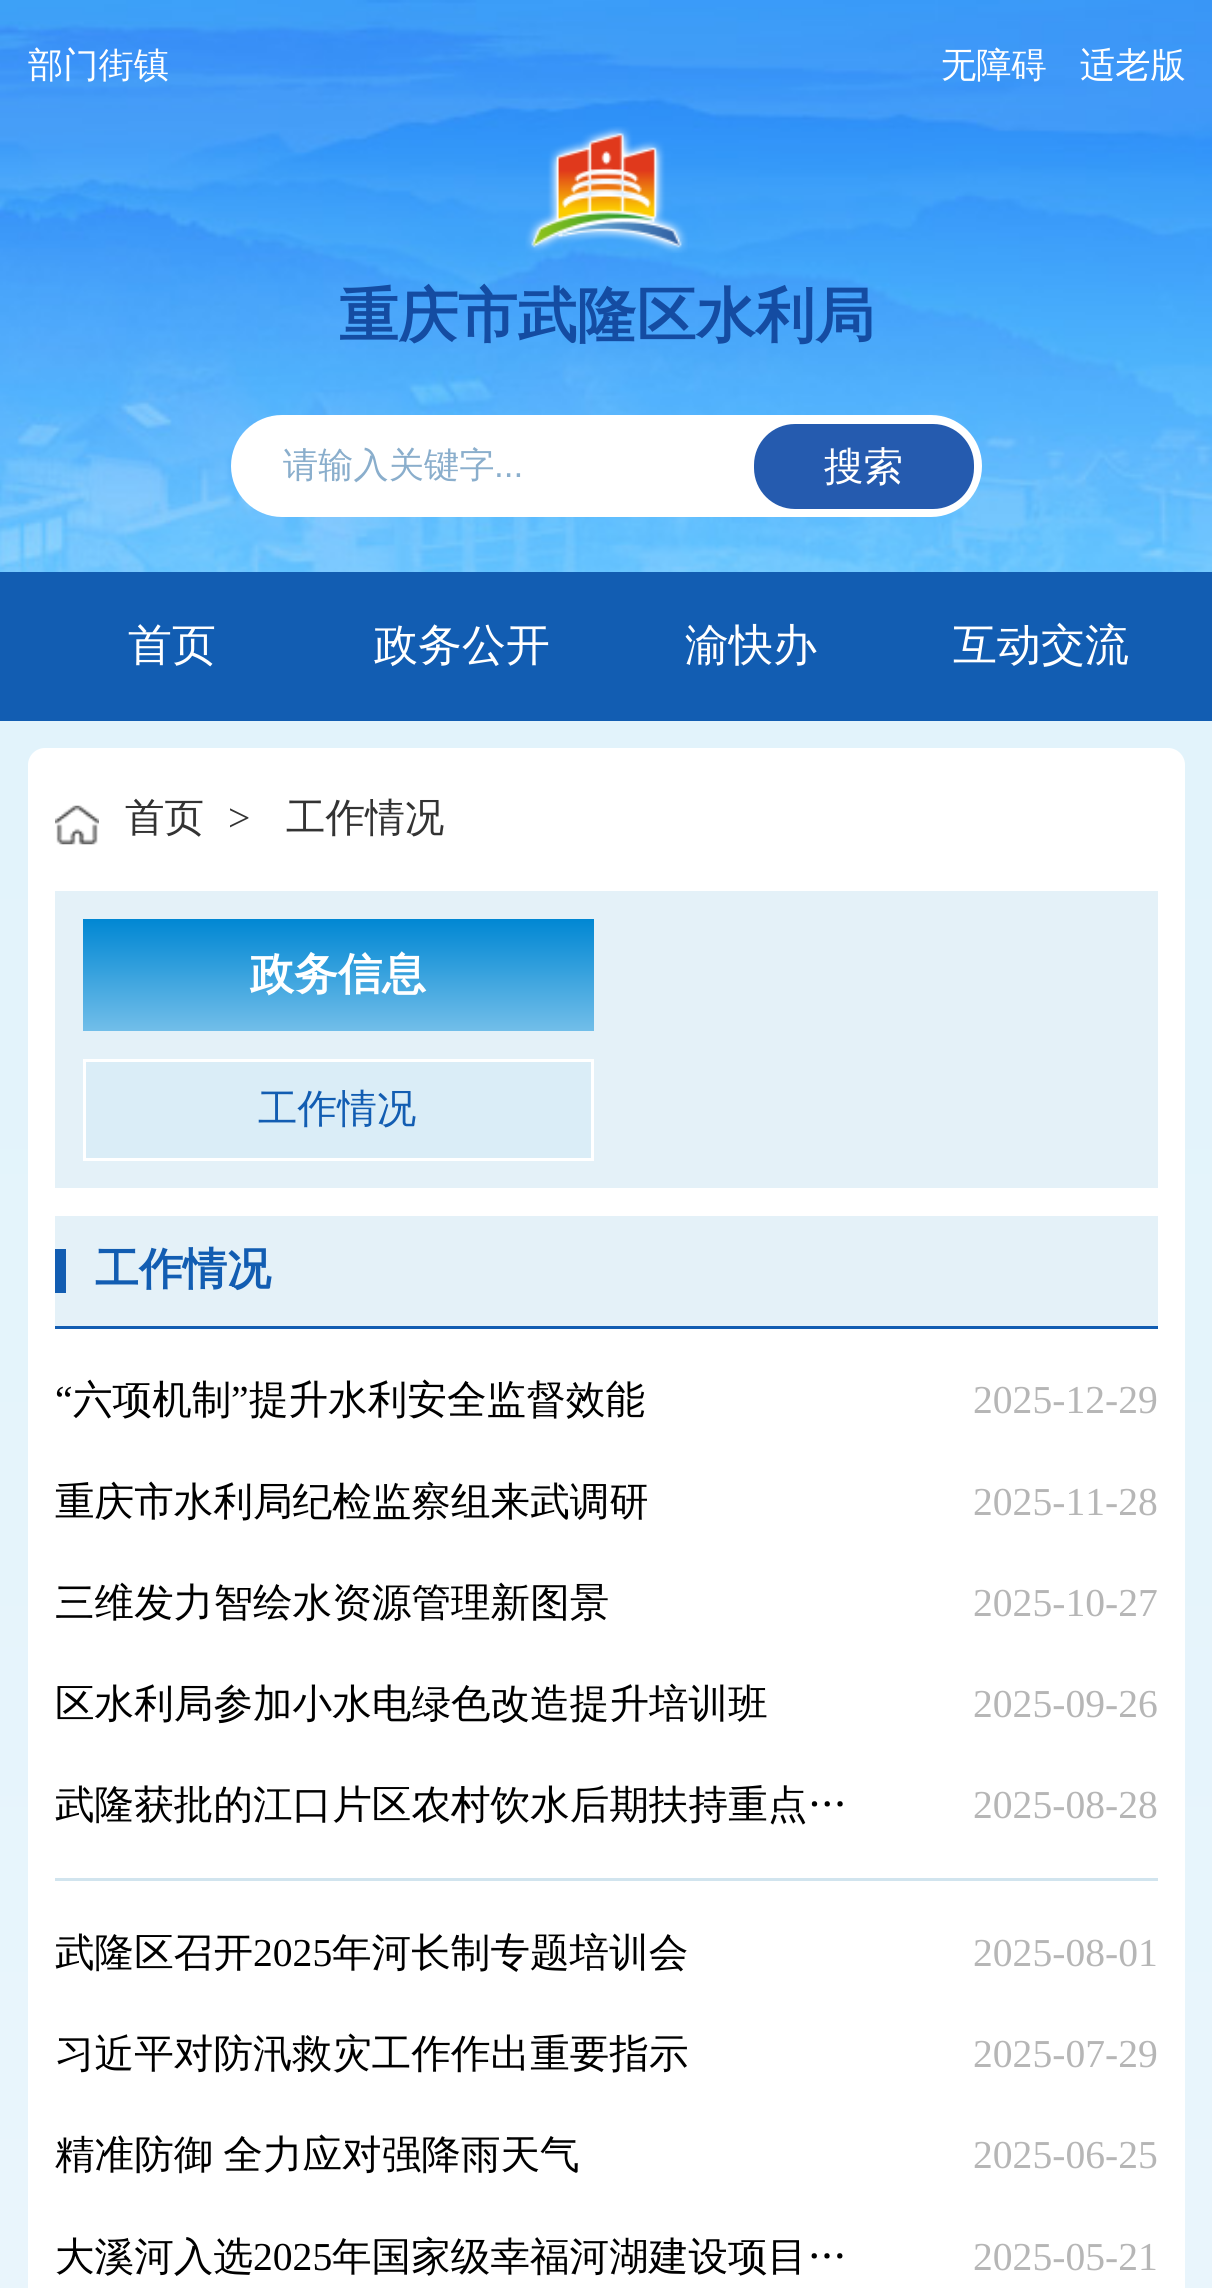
#include <cairo.h>
#include <math.h>
#include <stddef.h>

typedef struct { const char *family; double size; int italic, bold; unsigned color; } style_t;
static cairo_t *ctx;

static void ink(unsigned color) {
    cairo_set_source_rgb(ctx, (color >> 16) / 255.0, (color >> 8 & 255) / 255.0, (color & 255) / 255.0);
}

static void write(double x, double y, const char *s, const style_t *st) {
    cairo_select_font_face(ctx, st->family, st->italic ? CAIRO_FONT_SLANT_ITALIC : CAIRO_FONT_SLANT_NORMAL,
        st->bold ? CAIRO_FONT_WEIGHT_BOLD : CAIRO_FONT_WEIGHT_NORMAL);
    cairo_set_font_size(ctx, st->size);
    ink(st->color);
    cairo_move_to(ctx, x, y);
    cairo_show_text(ctx, s);
}

static void write_spaced(double x, double y, const char *s, double letter, double word) {
    cairo_move_to(ctx, x, y);
    while (*s) {
        char ch[5] = {0};
        int n = 0;
        do ch[n++] = *s++; while ((*s & 0xC0) == 0x80);
        cairo_show_text(ctx, ch);
        cairo_rel_move_to(ctx, letter + word * (*ch == ' '), 0);
    }
}

static void block(double x, double y, double w, double h, unsigned color) {
    ink(color);
    cairo_rectangle(ctx, x, y, w, h);
    cairo_fill(ctx);
}

static void round_path(double x, double y, double w, double h, double r) {
    cairo_new_sub_path(ctx);
    cairo_arc(ctx, x + w - r, y + h - r, r, 0, M_PI / 2);
    cairo_arc(ctx, x + r, y + h - r, r, M_PI / 2, M_PI);
    cairo_arc(ctx, x + r, y + r, r, M_PI, 1.5 * M_PI);
    cairo_arc(ctx, x + w - r, y + r, r, 1.5 * M_PI, 2 * M_PI);
    cairo_close_path(ctx);
}

static void paste(const char *path, double x, double y, double w, double h) {
    cairo_surface_t *image = cairo_image_surface_create_from_png(path);
    cairo_save(ctx);
    cairo_set_source_surface(ctx, image, x, y);
    cairo_rectangle(ctx, x, y, w, h);
    cairo_fill(ctx);
    cairo_restore(ctx);
    cairo_surface_destroy(image);
}

static const style_t s1 = {"WenQuanYi Zen Hei Medium", 35.25, 0, 0, 0xffffff};
static const style_t s2 = {"WenQuanYi Zen Hei", 59.5, 0, 1, 0x144ca2};
static const style_t s3 = {"WenQuanYi Zen Hei Medium", 35.25, 0, 0, 0x8aaecc};
static const style_t s4 = {"Liberation Sans", 35.25, 0, 0, 0x8aaecc};
static const style_t s5 = {"WenQuanYi Zen Hei Medium", 39.6, 0, 0, 0xffffff};
static const style_t s6 = {"WenQuanYi Zen Hei Medium", 44, 0, 0, 0xffffff};
static const style_t s7 = {"WenQuanYi Zen Hei Medium", 39.6, 0, 0, 0x333333};
static const style_t s8 = {"Liberation Serif", 39.6, 0, 0, 0x333333};
static const style_t s9 = {"WenQuanYi Zen Hei", 44, 0, 1, 0xffffff};
static const style_t s10 = {"WenQuanYi Zen Hei Medium", 39.6, 0, 0, 0x125db2};
static const style_t s11 = {"WenQuanYi Zen Hei", 44, 0, 1, 0x125db2};
static const style_t s12 = {"Liberation Serif", 39.6, 0, 0, 0x000000};
static const style_t s13 = {"WenQuanYi Zen Hei Medium", 39.6, 0, 0, 0x000000};
static const style_t s14 = {"Liberation Serif", 39.6, 0, 0, 0xb6b6b6};

int main(void) {
    cairo_surface_t *surface = cairo_image_surface_create(CAIRO_FORMAT_RGB24, 1212, 2288);
    ctx = cairo_create(surface);
    cairo_font_options_t *options = cairo_font_options_create();
    cairo_font_options_set_hint_metrics(options, CAIRO_HINT_METRICS_OFF);
    cairo_font_options_set_hint_style(options, CAIRO_HINT_STYLE_NONE);
    cairo_set_font_options(ctx, options);
    cairo_set_miter_limit(ctx, 4);
    cairo_pattern_t *gradient;
    ink(0xffffff);
    cairo_paint(ctx);
    paste("pic1.png", 0, 0, 1212, 572);
    write(28, 77, "部门街镇", &s1);
    write(941, 77, "无障碍", &s1);
    write(1080, 77, "适老版", &s1);
    paste("pic2.png", 525, 126, 163, 127);
    write(339, 336, "重庆市武隆区水利局", &s2);
    ink(0xffffff);
    round_path(231, 415, 751, 102, 51);
    cairo_fill(ctx);
    write(283, 477, "请输入关键字", &s3);
    write(494, 477, "...", &s4);
    ink(0x255baf);
    round_path(754, 424, 220, 85, 41);
    cairo_fill(ctx);
    write(824, 480, "搜索", &s5);
    block(0, 572, 1212, 149, 0x125db2);
    write(128, 660, "首页", &s6);
    write(374, 660, "政务公开", &s6);
    write(685, 660, "渝快办", &s6);
    write(953, 660, "互动交流", &s6);
    paste("pic3.png", 0, 721, 1212, 1567);
    round_path(28, 748, 1157, 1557, 17);
    cairo_fill(ctx);
    paste("pic4.png", 55, 805, 44, 40);
    write(125, 831, "首页", &s7);
    write(228, 831, ">", &s8);
    write(286, 831, "工作情况", &s7);
    block(55, 891, 1103, 297, 0xe4f1f8);
    gradient = cairo_pattern_create_linear(338, 1031, 338, 919);
    cairo_pattern_add_color_stop_rgba(gradient, 0, 0.447, 0.745, 0.914, 1);
    cairo_pattern_add_color_stop_rgba(gradient, 1, 0, 0.529, 0.827, 1);
    cairo_set_source(ctx, gradient);
    cairo_pattern_destroy(gradient);
    cairo_rectangle(ctx, 83, 919, 511, 112);
    cairo_fill(ctx);
    write(250, 989, "政务信息", &s9);
    block(86, 1062, 505, 96, 0xdaedf7);
    cairo_rectangle(ctx, 84.5, 1060.5, 508, 99);
    ink(0xffffff);
    cairo_set_line_width(ctx, 3);
    cairo_stroke(ctx);
    write(258, 1122, "工作情况", &s10);
    block(55, 1216, 1103, 110, 0xe4f1f8);
    block(55, 1326, 1103, 3, 0x125db2);
    block(55, 1249, 11, 44, 0x125db2);
    write(95, 1284, "工作情况", &s11);
    write(55, 1413, "“", &s12);
    write(73, 1413, "六项机制", &s13);
    write(231, 1413, "”", &s12);
    write(249, 1413, "提升水利安全监督效能", &s13);
    write(973, 1413, "2025-12-29", &s14);
    write(55, 1515, "重庆市水利局纪检监察组来武调研", &s13);
    write(973, 1515, "2025-11-28", &s14);
    write(55, 1616, "三维发力智绘水资源管理新图景", &s13);
    write(973, 1616, "2025-10-27", &s14);
    write(55, 1717, "区水利局参加小水电绿色改造提升培训班", &s13);
    write(973, 1717, "2025-09-26", &s14);
    block(55, 1878, 1103, 3, 0xd1e4ee);
    write(55, 1818, "武隆获批的江口片区农村饮水后期扶持重点…", &s13);
    write(973, 1818, "2025-08-28", &s14);
    write(55, 1966, "武隆区召开", &s13);
    write(253, 1966, "2025", &s12);
    write(332, 1966, "年河长制专题培训会", &s13);
    write(973, 1966, "2025-08-01", &s14);
    write(55, 2067, "习近平对防汛救灾工作作出重要指示", &s13);
    write(973, 2067, "2025-07-29", &s14);
    cairo_select_font_face(ctx, "WenQuanYi Zen Hei Medium", CAIRO_FONT_SLANT_NORMAL, CAIRO_FONT_WEIGHT_NORMAL);
    ink(0x000000);
    write_spaced(55, 2168, "精准防御 全力应对强降雨天气", 0, -2);
    write(973, 2168, "2025-06-25", &s14);
    write(55, 2270, "大溪河入选", &s13);
    write(253, 2270, "2025", &s12);
    write(332, 2270, "年国家级幸福河湖建设项目…", &s13);
    write(973, 2270, "2025-05-21", &s14);
    cairo_surface_write_to_png(surface, "screenshot.png");
    cairo_font_options_destroy(options);
    cairo_destroy(ctx);
    cairo_surface_destroy(surface);
    return 0;
}
